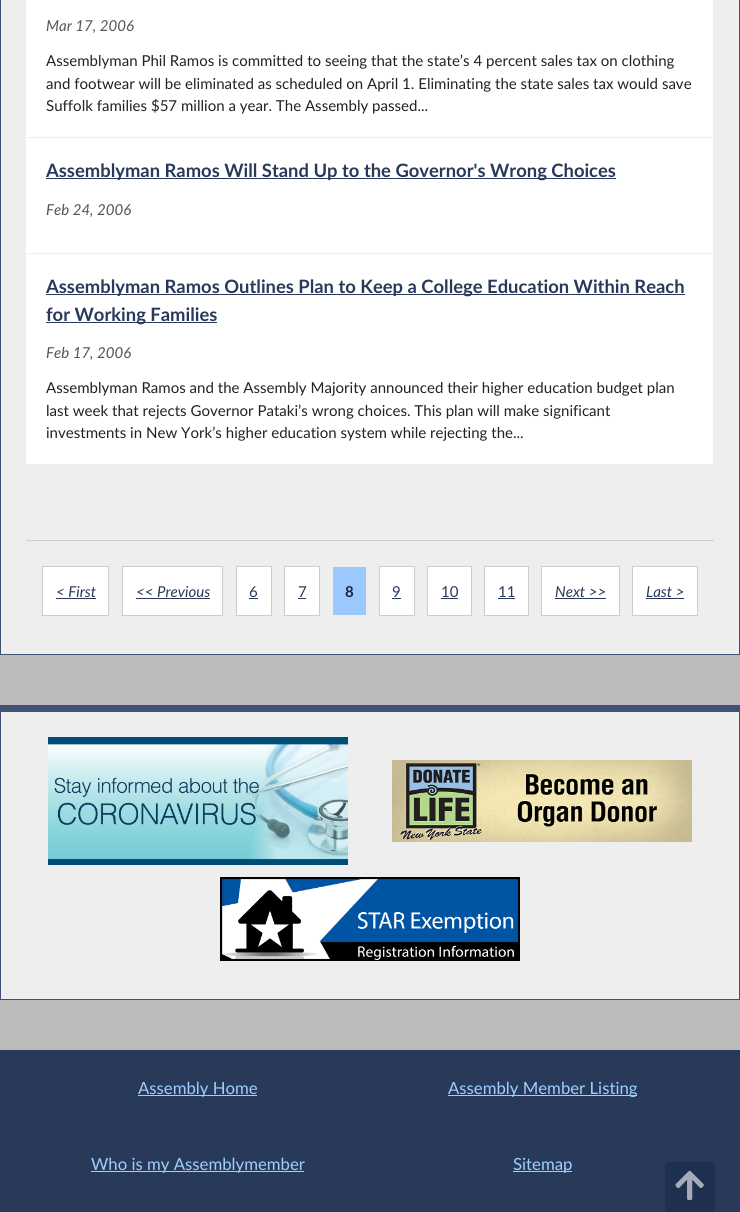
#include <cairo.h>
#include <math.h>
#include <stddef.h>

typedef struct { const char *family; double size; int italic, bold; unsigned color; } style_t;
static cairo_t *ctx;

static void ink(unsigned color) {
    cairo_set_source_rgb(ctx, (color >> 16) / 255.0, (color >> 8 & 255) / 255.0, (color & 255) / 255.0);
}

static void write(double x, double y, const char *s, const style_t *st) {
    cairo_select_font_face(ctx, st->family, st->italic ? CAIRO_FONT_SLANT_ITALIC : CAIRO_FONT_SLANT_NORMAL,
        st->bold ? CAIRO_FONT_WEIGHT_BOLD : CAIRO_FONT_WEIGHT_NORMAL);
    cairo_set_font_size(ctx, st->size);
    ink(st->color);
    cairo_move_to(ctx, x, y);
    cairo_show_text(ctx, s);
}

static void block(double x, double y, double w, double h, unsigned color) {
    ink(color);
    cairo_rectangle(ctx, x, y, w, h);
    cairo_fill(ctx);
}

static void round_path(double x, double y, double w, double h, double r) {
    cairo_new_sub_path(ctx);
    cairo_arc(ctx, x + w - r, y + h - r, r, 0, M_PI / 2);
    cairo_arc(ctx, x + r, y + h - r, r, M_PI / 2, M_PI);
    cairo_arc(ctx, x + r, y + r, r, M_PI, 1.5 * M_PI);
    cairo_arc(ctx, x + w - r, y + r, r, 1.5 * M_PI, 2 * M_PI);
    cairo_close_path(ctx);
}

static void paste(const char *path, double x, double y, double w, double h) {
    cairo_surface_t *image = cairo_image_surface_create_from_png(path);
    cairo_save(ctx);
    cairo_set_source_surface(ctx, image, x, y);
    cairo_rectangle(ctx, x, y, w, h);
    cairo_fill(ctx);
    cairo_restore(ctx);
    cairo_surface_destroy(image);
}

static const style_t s1 = {"Lato", 15.05, 1, 0, 0x555555};
static const style_t s2 = {"Lato", 15.05, 0, 0, 0x222222};
static const style_t s3 = {"Lato", 18.4, 0, 1, 0x29395a};
static const style_t s4 = {"Lato", 15.05, 1, 0, 0x29395a};
static const style_t s5 = {"Lato", 15.05, 0, 0, 0x29395a};
static const style_t s6 = {"Lato", 15.05, 0, 1, 0x192847};
static const style_t s7 = {"Lato", 16.75, 0, 0, 0x9cd0ff};

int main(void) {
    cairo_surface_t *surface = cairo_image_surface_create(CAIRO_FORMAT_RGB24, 740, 1212);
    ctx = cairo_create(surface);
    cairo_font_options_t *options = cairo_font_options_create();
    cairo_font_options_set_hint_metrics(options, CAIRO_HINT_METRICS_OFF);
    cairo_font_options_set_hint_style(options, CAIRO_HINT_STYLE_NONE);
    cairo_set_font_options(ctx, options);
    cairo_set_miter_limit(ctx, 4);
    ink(0xbbbbbb);
    cairo_paint(ctx);
    block(1, 0, 738, 654, 0xeeeeee);
    block(739, 0, 1, 655, 0x405175);
    block(0, 654, 740, 1, 0x405175);
    block(0, 0, 1, 655, 0x405175);
    block(26, 540, 688, 1, 0xcccccc);
    block(26, 0, 687, 137, 0xffffff);
    write(46, 31, "Mar 17, 2006", &s1);
    write(46, 66, "Assemblyman Phil Ramos is committed to seeing that the state’s 4 percent sales tax on clothing", &s2);
    write(46, 89, "and footwear will be eliminated as scheduled on April 1. Eliminating the state sales tax would save", &s2);
    write(46, 111, "Suffolk families $57 million a year. The Assembly passed...", &s2);
    block(26, 138, 687, 115, 0xffffff);
    block(46, 178, 570, 1, 0x29395a);
    write(46, 177, "Assemblyman Ramos Will Stand Up to the Governor's Wrong Choices", &s3);
    write(46, 215, "Feb 24, 2006", &s1);
    block(26, 254, 687, 210, 0xffffff);
    block(46, 294, 639, 1, 0x29395a);
    write(46, 293, "Assemblyman Ramos Outlines Plan to Keep a College Education Within Reach", &s3);
    block(46, 322, 171, 1, 0x29395a);
    write(46, 321, "for Working Families", &s3);
    write(46, 358, "Feb 17, 2006", &s1);
    write(46, 393, "Assemblyman Ramos and the Assembly Majority announced their higher education budget plan", &s2);
    write(46, 416, "last week that rejects Governor Pataki’s wrong choices. This plan will make significant", &s2);
    write(46, 438, "investments in New York’s higher education system while rejecting the...", &s2);
    ink(0xffffff);
    cairo_rectangle(ctx, 42.5, 566.5, 66, 49);
    cairo_fill_preserve(ctx);
    ink(0xcccccc);
    cairo_set_line_width(ctx, 1);
    cairo_stroke(ctx);
    write(56, 597, "< First", &s4);
    block(56, 598, 40, 1, 0x29395a);
    ink(0xffffff);
    cairo_rectangle(ctx, 122.5, 566.5, 100, 49);
    cairo_fill_preserve(ctx);
    ink(0xcccccc);
    cairo_stroke(ctx);
    write(136, 597, "<< Previous", &s4);
    block(136, 598, 74, 1, 0x29395a);
    ink(0xffffff);
    cairo_rectangle(ctx, 236.5, 566.5, 35, 49);
    cairo_fill_preserve(ctx);
    ink(0xcccccc);
    cairo_stroke(ctx);
    write(249, 597, "6", &s5);
    block(249, 598, 9, 1, 0x29395a);
    ink(0xffffff);
    cairo_rectangle(ctx, 284.5, 566.5, 35, 49);
    cairo_fill_preserve(ctx);
    ink(0xcccccc);
    cairo_stroke(ctx);
    write(298, 597, "7", &s5);
    block(298, 598, 8, 1, 0x29395a);
    block(333, 567, 33, 48, 0x9bc9ff);
    write(345, 597, "8", &s6);
    ink(0xffffff);
    cairo_rectangle(ctx, 379.5, 566.5, 35, 49);
    cairo_fill_preserve(ctx);
    ink(0xcccccc);
    cairo_stroke(ctx);
    write(392, 597, "9", &s5);
    block(392, 598, 9, 1, 0x29395a);
    ink(0xffffff);
    cairo_rectangle(ctx, 427.5, 566.5, 44, 49);
    cairo_fill_preserve(ctx);
    ink(0xcccccc);
    cairo_stroke(ctx);
    write(441, 597, "10", &s5);
    block(441, 598, 17, 1, 0x29395a);
    ink(0xffffff);
    cairo_rectangle(ctx, 484.5, 566.5, 44, 49);
    cairo_fill_preserve(ctx);
    ink(0xcccccc);
    cairo_stroke(ctx);
    write(498, 597, "11", &s5);
    block(498, 598, 17, 1, 0x29395a);
    ink(0xffffff);
    cairo_rectangle(ctx, 541.5, 566.5, 78, 49);
    cairo_fill_preserve(ctx);
    ink(0xcccccc);
    cairo_stroke(ctx);
    write(555, 597, "Next >>", &s4);
    block(555, 598, 51, 1, 0x29395a);
    ink(0xffffff);
    cairo_rectangle(ctx, 632.5, 566.5, 65, 49);
    cairo_fill_preserve(ctx);
    ink(0xcccccc);
    cairo_stroke(ctx);
    write(646, 597, "Last >", &s4);
    block(646, 598, 38, 1, 0x29395a);
    block(1, 712, 738, 287, 0xeeeeee);
    block(0, 705, 740, 7, 0x405175);
    block(739, 705, 1, 295, 0x405175);
    block(0, 999, 740, 1, 0x405175);
    block(0, 705, 1, 295, 0x405175);
    paste("pic1.png", 48, 737, 300, 128);
    paste("pic2.png", 392, 760, 300, 82);
    paste("pic3.png", 220, 877, 300, 84);
    block(0, 1050, 740, 162, 0x29395a);
    block(138, 1095, 119, 1, 0x9cd0ff);
    write(138, 1094, "Assembly Home", &s7);
    block(448, 1095, 189, 1, 0x9cd0ff);
    write(448, 1094, "Assembly Member Listing", &s7);
    block(91, 1171, 213, 1, 0x9cd0ff);
    write(91, 1170, "Who is my Assemblymember", &s7);
    block(513, 1171, 59, 1, 0x9cd0ff);
    write(513, 1170, "Sitemap", &s7);
    ink(0x1f2f4f);
    round_path(665, 1162, 50, 50, 4);
    cairo_fill(ctx);
    paste("pic4.png", 675, 1170, 29, 31);
    cairo_surface_write_to_png(surface, "screenshot.png");
    cairo_font_options_destroy(options);
    cairo_destroy(ctx);
    cairo_surface_destroy(surface);
    return 0;
}
